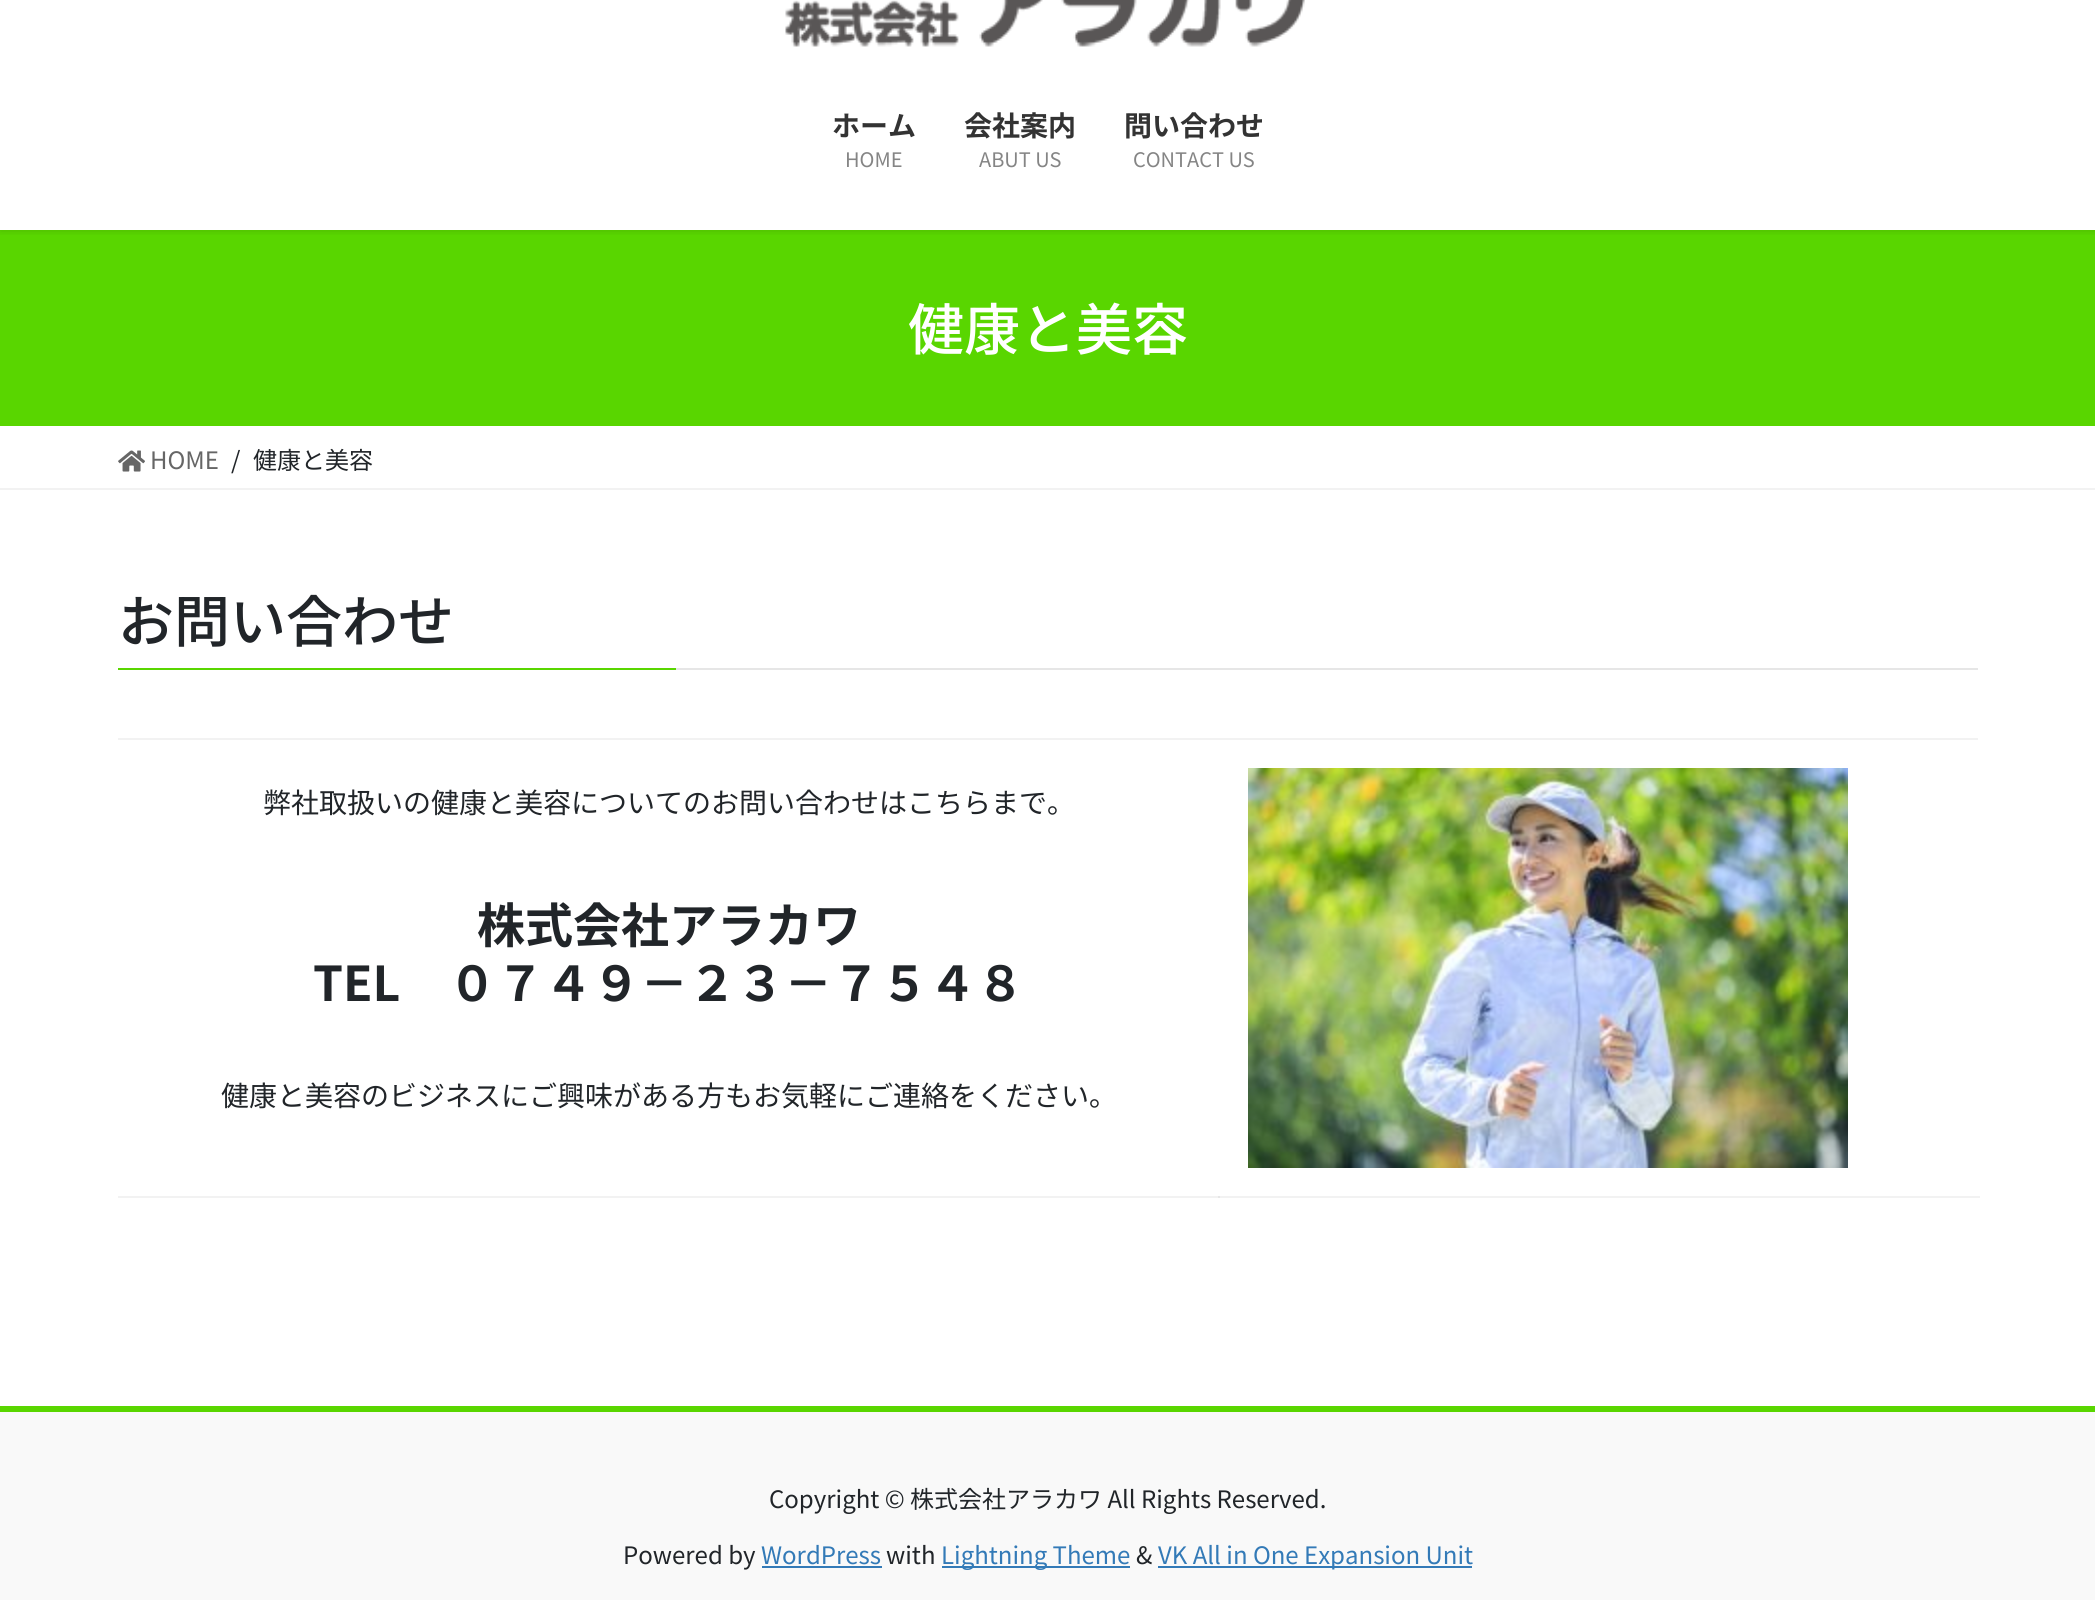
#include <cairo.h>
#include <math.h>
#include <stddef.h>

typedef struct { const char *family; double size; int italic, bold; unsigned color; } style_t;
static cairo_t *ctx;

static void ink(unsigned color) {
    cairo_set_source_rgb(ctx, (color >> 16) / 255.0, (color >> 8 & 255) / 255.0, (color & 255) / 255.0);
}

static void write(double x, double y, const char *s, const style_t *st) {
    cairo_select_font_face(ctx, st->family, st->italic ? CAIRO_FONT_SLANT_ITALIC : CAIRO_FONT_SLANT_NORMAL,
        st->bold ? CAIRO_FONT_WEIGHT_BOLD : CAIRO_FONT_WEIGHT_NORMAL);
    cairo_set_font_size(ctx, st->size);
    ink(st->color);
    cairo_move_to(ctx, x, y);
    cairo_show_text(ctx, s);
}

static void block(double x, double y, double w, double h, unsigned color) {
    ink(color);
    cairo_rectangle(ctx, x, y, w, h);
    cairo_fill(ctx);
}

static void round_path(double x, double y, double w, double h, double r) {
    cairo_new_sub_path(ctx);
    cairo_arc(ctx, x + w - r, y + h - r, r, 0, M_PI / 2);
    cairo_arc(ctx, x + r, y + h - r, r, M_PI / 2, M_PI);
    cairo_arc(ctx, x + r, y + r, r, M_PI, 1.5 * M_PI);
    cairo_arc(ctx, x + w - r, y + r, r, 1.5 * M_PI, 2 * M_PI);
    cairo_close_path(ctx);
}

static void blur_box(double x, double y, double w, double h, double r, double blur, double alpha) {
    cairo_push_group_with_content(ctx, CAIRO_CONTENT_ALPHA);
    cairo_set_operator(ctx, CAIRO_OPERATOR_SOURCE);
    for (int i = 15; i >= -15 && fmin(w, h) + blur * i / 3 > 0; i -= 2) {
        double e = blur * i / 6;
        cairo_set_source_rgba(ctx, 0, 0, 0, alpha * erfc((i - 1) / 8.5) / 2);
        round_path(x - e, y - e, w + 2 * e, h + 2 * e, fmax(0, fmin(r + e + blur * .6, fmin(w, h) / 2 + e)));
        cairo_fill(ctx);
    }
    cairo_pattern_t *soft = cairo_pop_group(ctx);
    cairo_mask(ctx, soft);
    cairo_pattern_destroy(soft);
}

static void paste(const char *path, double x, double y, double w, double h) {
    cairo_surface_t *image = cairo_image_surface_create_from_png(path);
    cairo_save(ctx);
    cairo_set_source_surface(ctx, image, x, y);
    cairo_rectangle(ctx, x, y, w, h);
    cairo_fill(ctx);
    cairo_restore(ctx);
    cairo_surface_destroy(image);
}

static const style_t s1 = {"Noto Sans JP", 28, 0, 1, 0x333333};
static const style_t s2 = {"Noto Sans JP", 20, 0, 0, 0x858585};
static const style_t s3 = {"Noto Sans JP Medium", 56, 0, 0, 0xffffff};
static const style_t s4 = {"Noto Sans JP", 24, 0, 0, 0x666666};
static const style_t s5 = {"Noto Sans JP", 24, 0, 0, 0x212529};
static const style_t s6 = {"Noto Sans JP Medium", 56, 0, 0, 0x212529};
static const style_t s7 = {"Noto Sans JP", 28, 0, 0, 0x212529};
static const style_t s8 = {"Noto Sans JP", 48, 0, 1, 0x212529};
static const style_t s9 = {"Noto Sans JP", 24, 0, 0, 0x337ab7};

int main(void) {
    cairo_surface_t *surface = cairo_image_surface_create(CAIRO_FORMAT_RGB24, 2095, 1600);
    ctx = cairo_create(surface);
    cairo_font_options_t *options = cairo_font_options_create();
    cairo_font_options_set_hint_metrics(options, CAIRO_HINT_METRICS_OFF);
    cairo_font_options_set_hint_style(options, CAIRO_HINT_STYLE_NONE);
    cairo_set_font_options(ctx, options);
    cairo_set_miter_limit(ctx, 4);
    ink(0xffffff);
    cairo_paint(ctx);
    block(118, 1196, 1862, 2, 0xf2f2f2);
    block(0, 230, 2095, 196, 0x59d600);
    cairo_save(ctx);
    cairo_rectangle(ctx, 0, 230, 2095, 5);
    cairo_clip(ctx);
    ink(0x000000);
    blur_box(0, -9, 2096, 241, 0, 3, 0.1);
    cairo_restore(ctx);
    paste("pic1.png", 785, 0, 520, 47);
    write(832, 136, "ホーム", &s1);
    write(845, 167, "HOME", &s2);
    write(964, 136, "会社案内", &s1);
    write(979, 167, "ABUT US", &s2);
    write(1124, 136, "問い合わせ", &s1);
    write(1133, 167, "CONTACT US", &s2);
    write(908, 350, "健康と美容", &s3);
    block(0, 488, 2095, 2, 0xf2f2f2);
    paste("pic2.png", 118, 450, 27, 22);
    write(150, 469, "HOME", &s4);
    write(231, 469, "/", &s5);
    write(253, 469, "健康と美容", &s5);
    block(676, 668, 1302, 2, 0xe6e6e6);
    write(118, 642, "お問い合わせ", &s6);
    block(118, 668, 558, 2, 0x59d600);
    block(118, 738, 1860, 2, 0xf2f2f2);
    write(263, 813, "弊社取扱いの健康と美容についてのお問い合わせはこちらまで。", &s7);
    write(477, 943, "株式会社アラカワ", &s8);
    write(313, 1001, "TEL　０７４９－２３－７５４８", &s8);
    write(221, 1106, "健康と美容のビジネスにご興味がある方もお気軽にご連絡をください。", &s7);
    block(1218, 1196, 2, 2, 0xe6e6e6);
    paste("pic3.png", 1248, 768, 600, 400);
    block(0, 1412, 2095, 188, 0xf9f9f9);
    block(0, 1406, 2095, 6, 0x59d600);
    write(769, 1508, "Copyright © 株式会社アラカワ All Rights Reserved.", &s5);
    write(623, 1564, "Powered by", &s5);
    write(761, 1564, "WordPress", &s9);
    block(762, 1566, 120, 2, 0x337ab7);
    write(886, 1564, "with", &s5);
    block(942, 1566, 188, 2, 0x337ab7);
    write(941, 1564, "Lightning Theme", &s9);
    write(1136, 1564, "&", &s5);
    block(1158, 1566, 314, 2, 0x337ab7);
    write(1158, 1564, "VK All in One Expansion Unit", &s9);
    cairo_surface_write_to_png(surface, "screenshot.png");
    cairo_font_options_destroy(options);
    cairo_destroy(ctx);
    cairo_surface_destroy(surface);
    return 0;
}
